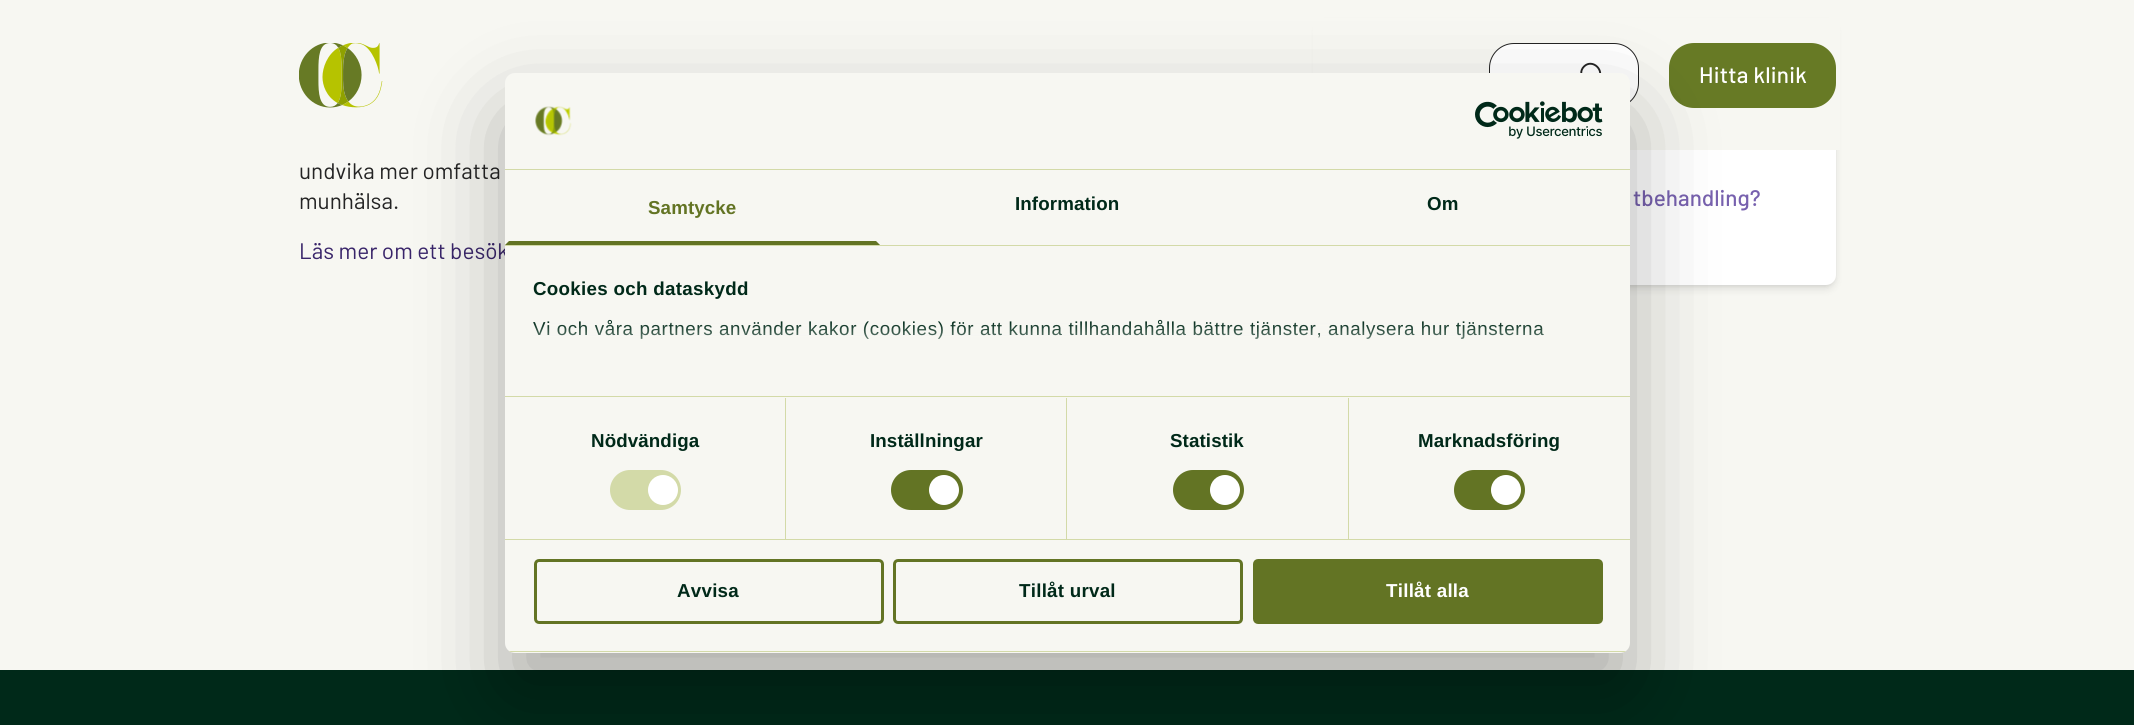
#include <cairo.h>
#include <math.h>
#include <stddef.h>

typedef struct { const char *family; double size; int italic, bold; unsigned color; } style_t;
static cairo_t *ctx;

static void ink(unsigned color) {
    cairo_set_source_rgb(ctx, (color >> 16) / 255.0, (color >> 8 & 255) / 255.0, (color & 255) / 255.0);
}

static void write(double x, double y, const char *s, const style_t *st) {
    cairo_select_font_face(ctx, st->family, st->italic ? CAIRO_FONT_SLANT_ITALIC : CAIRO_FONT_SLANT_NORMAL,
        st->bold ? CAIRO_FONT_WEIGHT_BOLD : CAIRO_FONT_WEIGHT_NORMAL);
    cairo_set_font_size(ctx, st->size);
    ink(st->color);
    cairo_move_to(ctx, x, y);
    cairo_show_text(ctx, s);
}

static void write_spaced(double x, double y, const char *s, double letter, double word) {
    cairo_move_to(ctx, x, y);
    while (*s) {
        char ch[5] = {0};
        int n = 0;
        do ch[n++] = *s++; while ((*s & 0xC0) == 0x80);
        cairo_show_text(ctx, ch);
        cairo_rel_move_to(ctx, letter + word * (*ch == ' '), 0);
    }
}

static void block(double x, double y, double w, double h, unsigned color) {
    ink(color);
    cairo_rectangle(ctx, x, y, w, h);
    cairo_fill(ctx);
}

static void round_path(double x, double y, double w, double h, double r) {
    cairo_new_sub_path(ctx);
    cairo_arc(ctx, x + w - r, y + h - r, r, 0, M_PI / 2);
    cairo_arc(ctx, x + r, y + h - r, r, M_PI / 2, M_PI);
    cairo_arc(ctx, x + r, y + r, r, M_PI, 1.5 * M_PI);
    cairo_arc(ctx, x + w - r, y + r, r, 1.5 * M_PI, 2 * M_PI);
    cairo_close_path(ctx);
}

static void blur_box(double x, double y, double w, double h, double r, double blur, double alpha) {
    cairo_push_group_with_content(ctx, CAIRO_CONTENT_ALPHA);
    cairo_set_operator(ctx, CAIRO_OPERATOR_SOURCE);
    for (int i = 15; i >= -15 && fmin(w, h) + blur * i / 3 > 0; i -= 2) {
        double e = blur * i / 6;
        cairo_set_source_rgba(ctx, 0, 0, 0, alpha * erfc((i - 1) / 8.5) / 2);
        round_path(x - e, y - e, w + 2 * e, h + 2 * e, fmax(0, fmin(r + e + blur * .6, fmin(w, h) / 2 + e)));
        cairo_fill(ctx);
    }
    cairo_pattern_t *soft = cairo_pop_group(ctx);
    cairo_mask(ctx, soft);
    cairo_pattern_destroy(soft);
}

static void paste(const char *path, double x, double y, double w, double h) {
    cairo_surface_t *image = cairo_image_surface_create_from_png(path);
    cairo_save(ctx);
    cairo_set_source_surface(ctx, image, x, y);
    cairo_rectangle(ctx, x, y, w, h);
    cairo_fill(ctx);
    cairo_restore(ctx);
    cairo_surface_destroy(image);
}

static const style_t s1 = {"Barlow", 22.5, 0, 0, 0x242424};
static const style_t s2 = {"Barlow", 22.5, 0, 0, 0x39256a};
static const style_t s3 = {"Barlow Medium", 22.5, 0, 0, 0x7761ae};

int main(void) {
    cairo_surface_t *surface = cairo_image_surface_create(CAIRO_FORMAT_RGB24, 2134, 725);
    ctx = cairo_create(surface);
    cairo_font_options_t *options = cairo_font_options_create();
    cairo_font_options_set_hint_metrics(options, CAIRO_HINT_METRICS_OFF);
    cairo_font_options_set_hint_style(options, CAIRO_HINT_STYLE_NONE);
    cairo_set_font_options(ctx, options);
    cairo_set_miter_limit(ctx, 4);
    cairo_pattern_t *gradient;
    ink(0xf7f7f2);
    cairo_paint(ctx);
    ink(0x000000);
    blur_box(1319, 23, 515, 262, 8, 2.5, 0.1);
    blur_box(1318, 24, 517, 265, 9, 4, 0.1);
    ink(0xffffff);
    round_path(1316, 18, 520, 267, 10);
    cairo_fill(ctx);
    block(1313, 18, 527, 132, 0xf7f7f2);
    paste("pic1.png", 299, 43, 84, 65);
    ink(0xffffff);
    round_path(1489.5, 43.5, 149, 64, 24.5);
    cairo_fill_preserve(ctx);
    ink(0x242424);
    cairo_set_line_width(ctx, 1);
    cairo_stroke(ctx);
    cairo_new_path(ctx);
    cairo_move_to(ctx, 1604, 86);
    cairo_line_to(ctx, 1597.5, 80);
    cairo_move_to(ctx, 1597.5, 80);
    cairo_curve_to(ctx, 1606, 71, 1592.5, 58, 1584, 66.5);
    cairo_curve_to(ctx, 1575.5, 75, 1588.5, 88.5, 1597.5, 80);
    cairo_close_path(ctx);
    cairo_set_line_width(ctx, 1.9);
    cairo_set_line_cap(ctx, CAIRO_LINE_CAP_ROUND);
    cairo_set_line_join(ctx, CAIRO_LINE_JOIN_ROUND);
    cairo_stroke(ctx);
    ink(0x677a25);
    round_path(1669, 43, 167, 65, 25);
    cairo_fill(ctx);
    cairo_select_font_face(ctx, "Barlow Medium", CAIRO_FONT_SLANT_NORMAL, CAIRO_FONT_WEIGHT_NORMAL);
    cairo_set_font_size(ctx, 22.5);
    ink(0xffffff);
    write_spaced(1699, 83, "Hitta klinik", 0.25, 0);
    write(299, 179, "undvika mer omfatta", &s1);
    write(299, 209, "munhälsa.", &s1);
    write(299, 259, "Läs mer om ett besök", &s2);
    write(1633, 206, "tbehandling?", &s3);
    block(0, 670, 2134, 55, 0x002919);
    ink(0x000000);
    blur_box(505, 113, 1125, 580, 10, 42.5, 0.3);
    ink(0xf7f7f2);
    round_path(505, 73, 1125, 580, 10);
    cairo_fill(ctx);
    block(505, 169, 1125, 1, 0xd3daa8);
    paste("pic2.png", 535, 106, 37, 30);
    paste("pic3.png", 1475, 101, 128, 38);
    block(505, 245, 1125, 1, 0xd3daa8);
    ink(0x637424);
    cairo_new_path(ctx);
    cairo_move_to(ctx, 880, 245);
    cairo_line_to(ctx, 505, 245);
    cairo_line_to(ctx, 509, 241);
    cairo_line_to(ctx, 876, 241);
    cairo_close_path(ctx);
    cairo_fill(ctx);
    cairo_select_font_face(ctx, "Liberation Sans", CAIRO_FONT_SLANT_NORMAL, CAIRO_FONT_WEIGHT_BOLD);
    cairo_set_font_size(ctx, 18.75);
    write_spaced(648, 214, "Samtycke", 0.1, 0);
    ink(0x002919);
    write_spaced(1015, 210, "Information", 0.1, 0);
    write_spaced(1427, 210, "Om", 0.1, 0);
    block(505, 396, 1125, 1, 0xd3daa8);
    ink(0x002919);
    write_spaced(533, 295, "Cookies och dataskydd", 0.3, 0);
    cairo_select_font_face(ctx, "Liberation Sans", CAIRO_FONT_SLANT_NORMAL, CAIRO_FONT_WEIGHT_NORMAL);
    write_spaced(533, 335, "Vi och våra partners använder kakor (cookies) för att kunna tillhandahålla bättre tjänster, analysera hur tjänsterna", 0.62, 0);
    gradient = cairo_pattern_create_linear(1055, 396, 1055, 321);
    cairo_pattern_add_color_stop_rgba(gradient, 0, 0.969, 0.969, 0.949, 1);
    cairo_pattern_add_color_stop_rgba(gradient, 0.5, 0.969, 0.969, 0.949, 0.8);
    cairo_pattern_add_color_stop_rgba(gradient, 1, 0.969, 0.969, 0.949, 0);
    cairo_set_source(ctx, gradient);
    cairo_pattern_destroy(gradient);
    cairo_rectangle(ctx, 533, 322, 1012, 17);
    cairo_fill(ctx);
    block(505, 539, 1125, 1, 0xd3daa8);
    block(785, 398, 1, 141, 0xd3daa8);
    cairo_select_font_face(ctx, "Liberation Sans", CAIRO_FONT_SLANT_NORMAL, CAIRO_FONT_WEIGHT_BOLD);
    ink(0x002919);
    write_spaced(591, 447, "Nödvändiga", 0.1, 0);
    ink(0xd3daa8);
    round_path(610, 470, 71, 40, 20);
    cairo_fill(ctx);
    ink(0xffffff);
    cairo_arc(ctx, 663, 490, 15, 0, 2 * M_PI);
    cairo_fill(ctx);
    block(1066, 398, 1, 141, 0xd3daa8);
    ink(0x002919);
    write_spaced(870, 447, "Inställningar", 0.1, 0);
    ink(0x637424);
    round_path(891, 470, 72, 40, 20);
    cairo_fill(ctx);
    ink(0xffffff);
    cairo_arc(ctx, 944, 490, 15, 0, 2 * M_PI);
    cairo_fill(ctx);
    block(1348, 398, 1, 141, 0xd3daa8);
    ink(0x002919);
    write_spaced(1170, 447, "Statistik", 0.1, 0);
    ink(0x637424);
    round_path(1173, 470, 71, 40, 20);
    cairo_fill(ctx);
    ink(0xffffff);
    cairo_arc(ctx, 1225, 490, 15, 0, 2 * M_PI);
    cairo_fill(ctx);
    ink(0x002919);
    write_spaced(1418, 447, "Marknadsföring", 0.1, 0);
    ink(0x637424);
    round_path(1454, 470, 71, 40, 20);
    cairo_fill(ctx);
    ink(0xffffff);
    cairo_arc(ctx, 1506, 490, 15, 0, 2 * M_PI);
    cairo_fill(ctx);
    cairo_save(ctx);
    round_path(505, 73, 1125, 580, 10);
    cairo_clip(ctx);
    block(505, 651, 1125, 1, 0xd3daa8);
    cairo_restore(ctx);
    round_path(535.5, 560.5, 347, 62, 3.5);
    ink(0x637424);
    cairo_set_line_width(ctx, 3);
    cairo_set_line_cap(ctx, CAIRO_LINE_CAP_BUTT);
    cairo_set_line_join(ctx, CAIRO_LINE_JOIN_MITER);
    cairo_stroke(ctx);
    ink(0x002919);
    write_spaced(677, 597, "Avvisa", 0.25, 0);
    round_path(894.5, 560.5, 347, 62, 3.5);
    ink(0x637424);
    cairo_stroke(ctx);
    ink(0x002919);
    write_spaced(1019, 597, "Tillåt urval", 0.25, 0);
    ink(0x637424);
    round_path(1254.5, 560.5, 347, 62, 3.5);
    cairo_fill_preserve(ctx);
    cairo_stroke(ctx);
    ink(0xffffff);
    write_spaced(1386, 597, "Tillåt alla", 0.25, 0);
    cairo_surface_write_to_png(surface, "screenshot.png");
    cairo_font_options_destroy(options);
    cairo_destroy(ctx);
    cairo_surface_destroy(surface);
    return 0;
}
